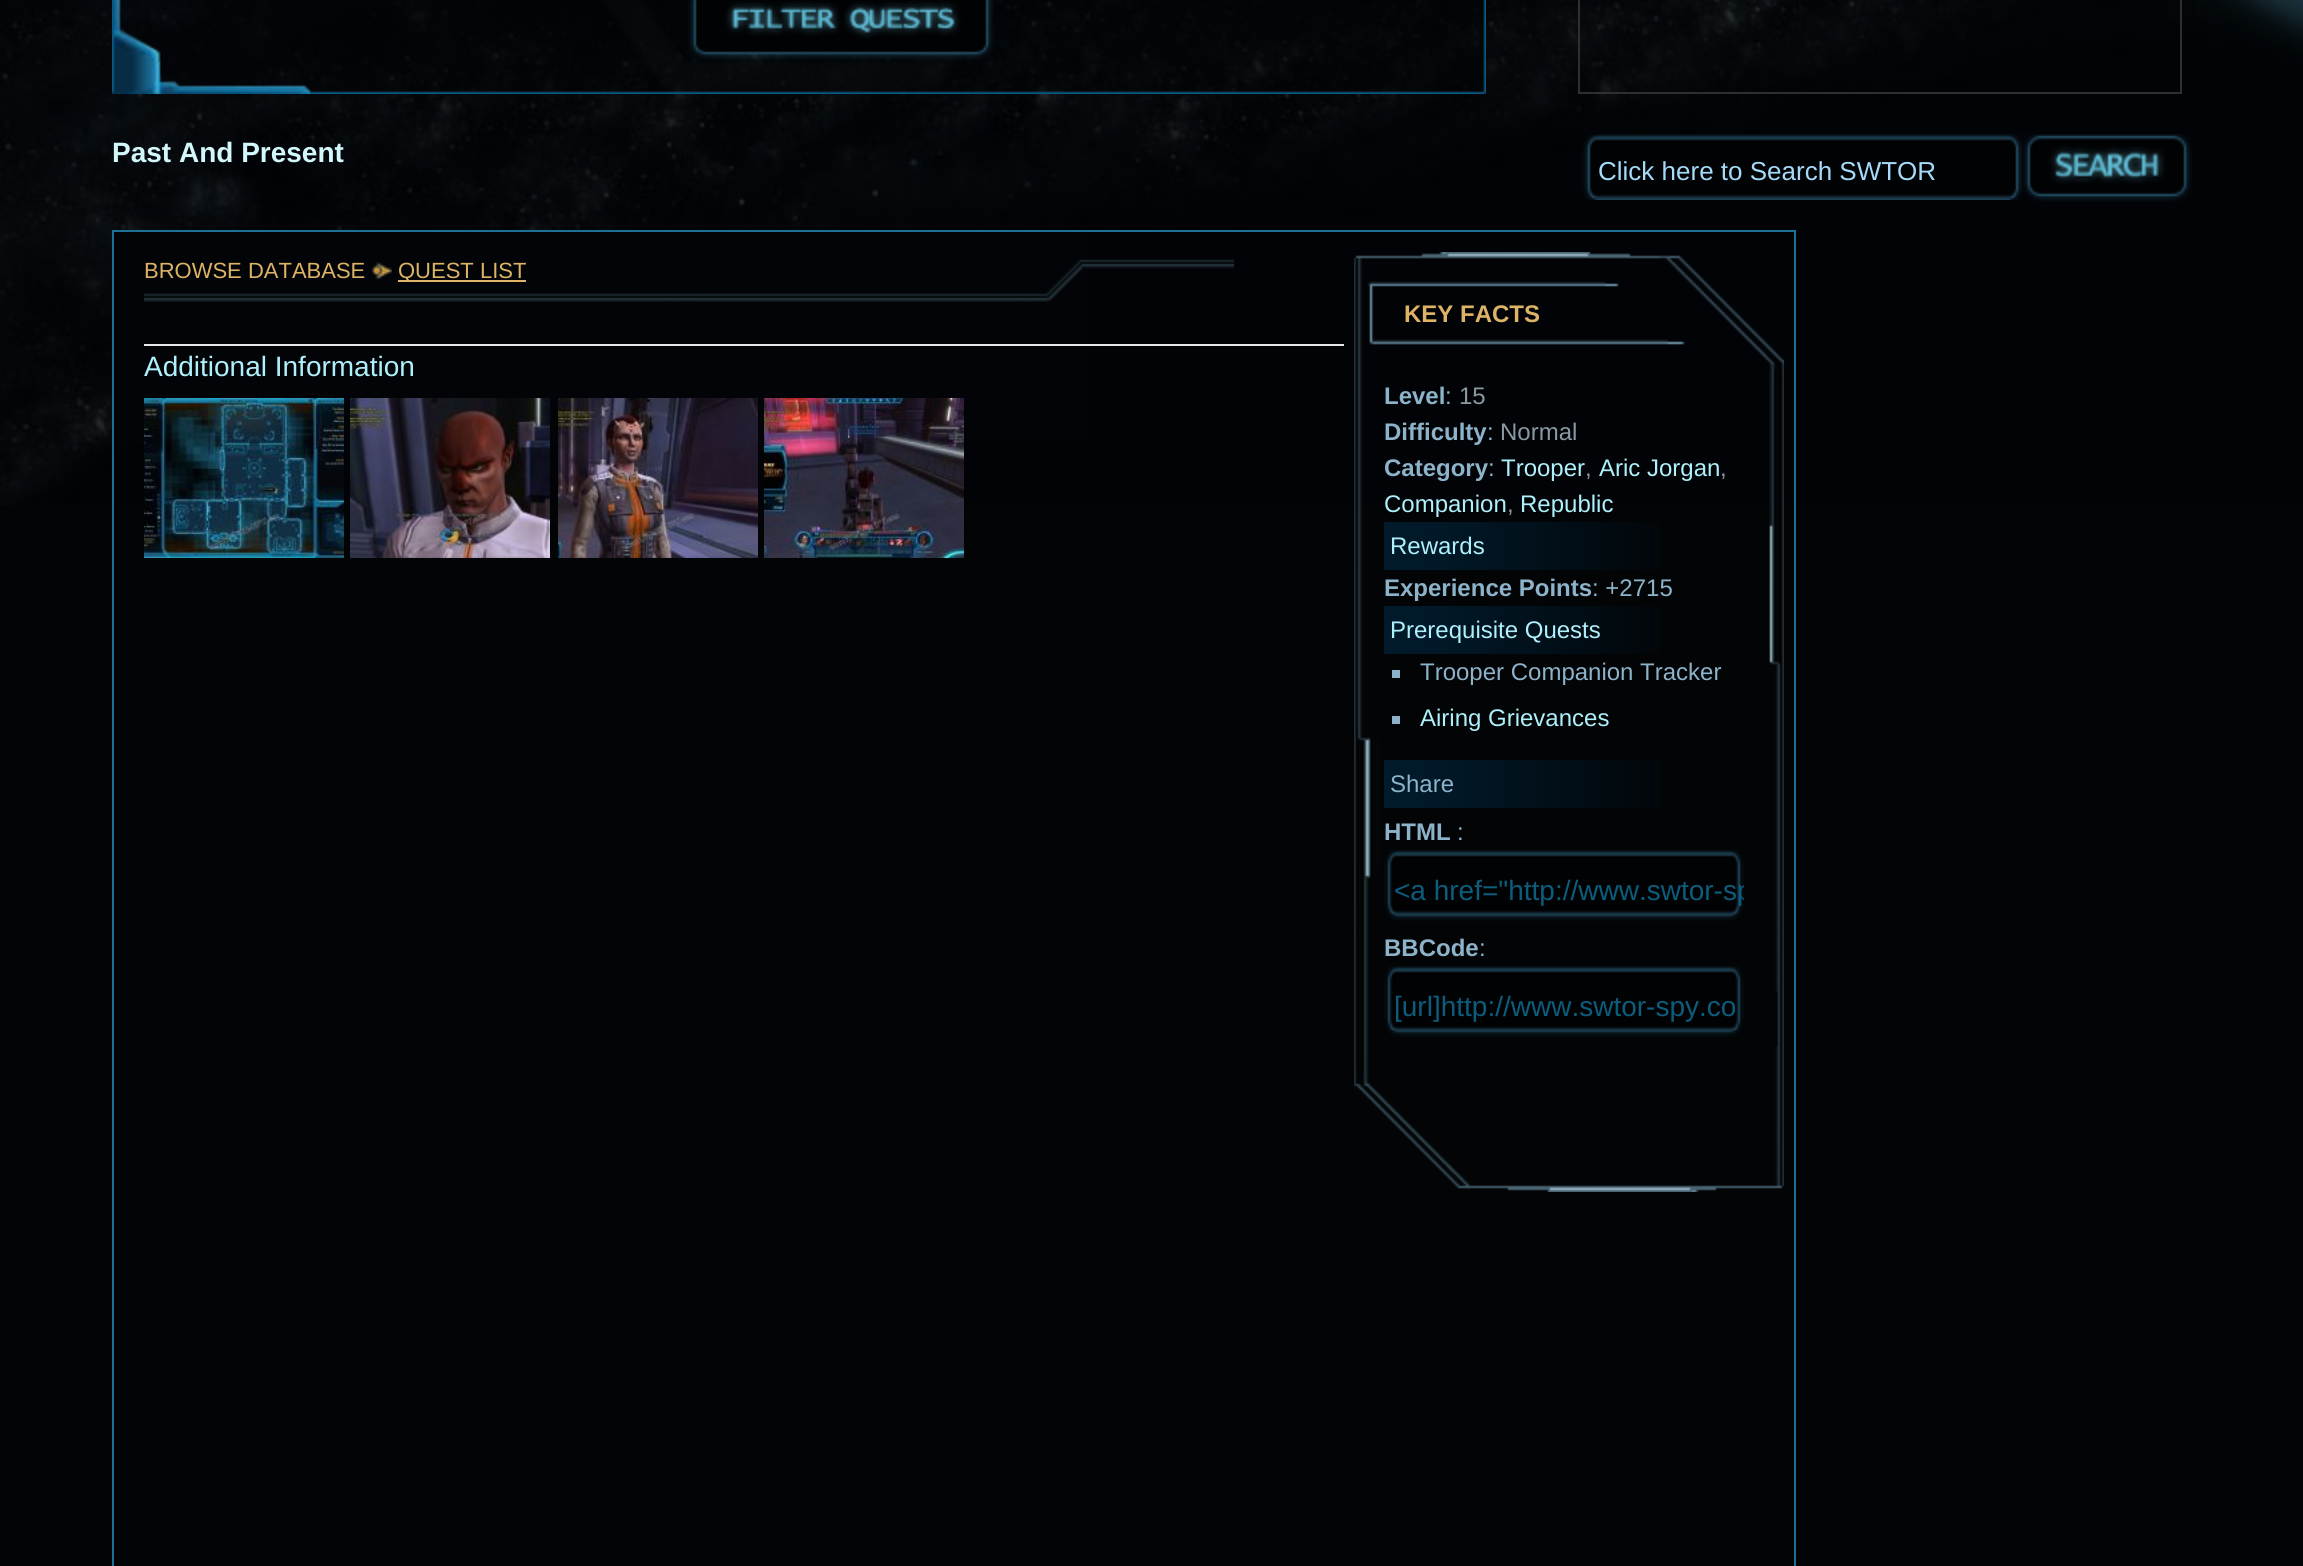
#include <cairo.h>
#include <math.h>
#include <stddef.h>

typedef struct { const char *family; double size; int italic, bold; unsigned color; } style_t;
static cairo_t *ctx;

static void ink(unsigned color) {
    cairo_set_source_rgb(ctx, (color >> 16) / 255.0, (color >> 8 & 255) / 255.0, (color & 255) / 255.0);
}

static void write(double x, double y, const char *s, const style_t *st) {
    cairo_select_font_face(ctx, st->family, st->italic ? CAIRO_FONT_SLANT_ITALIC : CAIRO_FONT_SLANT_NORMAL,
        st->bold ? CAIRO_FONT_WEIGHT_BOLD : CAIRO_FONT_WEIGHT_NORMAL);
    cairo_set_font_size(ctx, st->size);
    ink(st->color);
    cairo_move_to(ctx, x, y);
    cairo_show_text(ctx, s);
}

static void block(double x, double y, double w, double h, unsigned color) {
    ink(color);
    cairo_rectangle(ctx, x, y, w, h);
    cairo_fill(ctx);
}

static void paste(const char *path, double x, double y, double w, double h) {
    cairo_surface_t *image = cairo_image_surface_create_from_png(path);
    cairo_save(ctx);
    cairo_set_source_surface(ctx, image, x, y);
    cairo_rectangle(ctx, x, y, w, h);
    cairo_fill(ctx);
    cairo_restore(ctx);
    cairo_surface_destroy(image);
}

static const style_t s1 = {"Liberation Sans", 28, 0, 1, 0xd2f8fb};
static const style_t s2 = {"Liberation Sans", 26, 0, 0, 0xa5daf9};
static const style_t s3 = {"Liberation Sans", 22, 0, 0, 0xddb366};
static const style_t s4 = {"Liberation Sans", 28, 0, 0, 0xaef1fc};
static const style_t s5 = {"Liberation Sans", 24, 0, 1, 0xddb366};
static const style_t s6 = {"Liberation Sans", 24, 0, 1, 0x8cb3ca};
static const style_t s7 = {"Liberation Sans", 24, 0, 0, 0x8cb3ca};
static const style_t s8 = {"Liberation Sans", 24, 0, 0, 0x8999a2};
static const style_t s9 = {"Liberation Sans", 24, 0, 0, 0xaef1fc};
static const style_t s10 = {"Liberation Sans", 28, 0, 0, 0x0c5c7c};

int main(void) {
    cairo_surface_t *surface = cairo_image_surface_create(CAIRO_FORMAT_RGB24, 2303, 1566);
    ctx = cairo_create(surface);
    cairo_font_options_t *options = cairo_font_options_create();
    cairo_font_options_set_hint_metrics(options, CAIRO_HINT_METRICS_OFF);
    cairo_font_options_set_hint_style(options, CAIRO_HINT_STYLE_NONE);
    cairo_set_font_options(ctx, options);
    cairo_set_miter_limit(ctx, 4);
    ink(0x020406);
    cairo_paint(ctx);
    paste("pic1.png", 0, 0, 2303, 506);
    paste("pic2.png", 112, 0, 1374, 94);
    paste("pic3.png", 688, 0, 306, 60);
    cairo_rectangle(ctx, 1579, -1, 602, 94);
    ink(0x2f2f2f);
    cairo_stroke(ctx);
    write(112, 162, "Past And Present", &s1);
    paste("pic4.png", 1582, 134, 440, 66);
    write(1598, 180, "Click here to Search SWTOR", &s2);
    paste("pic5.png", 2022, 134, 170, 68);
    block(114, 232, 974, 210, 0x020407);
    cairo_rectangle(ctx, 113, 231, 1682, 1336);
    ink(0x1e7096);
    cairo_stroke(ctx);
    paste("pic6.png", 144, 259, 1090, 43);
    write(144, 278, "BROWSE DATABASE", &s3);
    paste("pic7.png", 372, 262, 20, 18);
    block(398, 280, 128, 2, 0xddb366);
    write(398, 278, "QUEST LIST", &s3);
    block(144, 344, 1200, 2, 0xe7e7e7);
    write(144, 376, "Additional Information", &s4);
    paste("pic8.png", 144, 398, 200, 160);
    paste("pic9.png", 350, 398, 200, 160);
    paste("pic10.png", 558, 398, 200, 160);
    paste("pic11.png", 764, 398, 200, 160);
    paste("pic12.png", 1354, 252, 430, 126);
    write(1404, 322, "KEY FACTS", &s5);
    paste("pic13.png", 1354, 378, 430, 668);
    write(1384, 404, "Level", &s6);
    write(1445, 404, ":", &s7);
    write(1459, 404, "15", &s8);
    write(1384, 440, "Difficulty", &s6);
    write(1487, 440, ":", &s7);
    write(1500, 440, "Normal", &s8);
    write(1384, 476, "Category", &s6);
    write(1488, 476, ":", &s7);
    write(1501, 476, "Trooper", &s9);
    write(1585, 476, ",", &s8);
    write(1599, 476, "Aric Jorgan", &s9);
    write(1720, 476, ",", &s8);
    write(1384, 512, "Companion", &s9);
    write(1507, 512, ",", &s8);
    write(1520, 512, "Republic", &s9);
    paste("pic14.png", 1384, 522, 277, 48);
    write(1390, 554, "Rewards", &s9);
    write(1384, 596, "Experience Points", &s6);
    write(1592, 596, ": +2715", &s7);
    paste("pic14.png", 1384, 606, 277, 48);
    write(1390, 638, "Prerequisite Quests", &s9);
    block(1392, 670, 8, 8, 0x8cb3ca);
    write(1420, 680, "Trooper Companion Tracker", &s7);
    block(1392, 716, 8, 8, 0x8cb3ca);
    write(1420, 726, "Airing Grievances", &s9);
    paste("pic14.png", 1384, 760, 277, 48);
    write(1390, 792, "Share", &s7);
    write(1384, 840, "HTML", &s6);
    write(1457, 840, ":", &s7);
    paste("pic15.png", 1384, 850, 360, 71);
    cairo_save(ctx);
    cairo_rectangle(ctx, 1394, 874, 350, 32);
    cairo_clip(ctx);
    write(1394, 900, "<a href=\"http://www.swtor-sp", &s10);
    cairo_restore(ctx);
    write(1384, 956, "BBCode", &s6);
    write(1479, 956, ":", &s7);
    paste("pic15.png", 1384, 966, 360, 71);
    write(1394, 1016, "[url]http://www.swtor-spy.co", &s10);
    paste("pic16.png", 1354, 1046, 430, 146);
    cairo_surface_write_to_png(surface, "screenshot.png");
    cairo_font_options_destroy(options);
    cairo_destroy(ctx);
    cairo_surface_destroy(surface);
    return 0;
}
